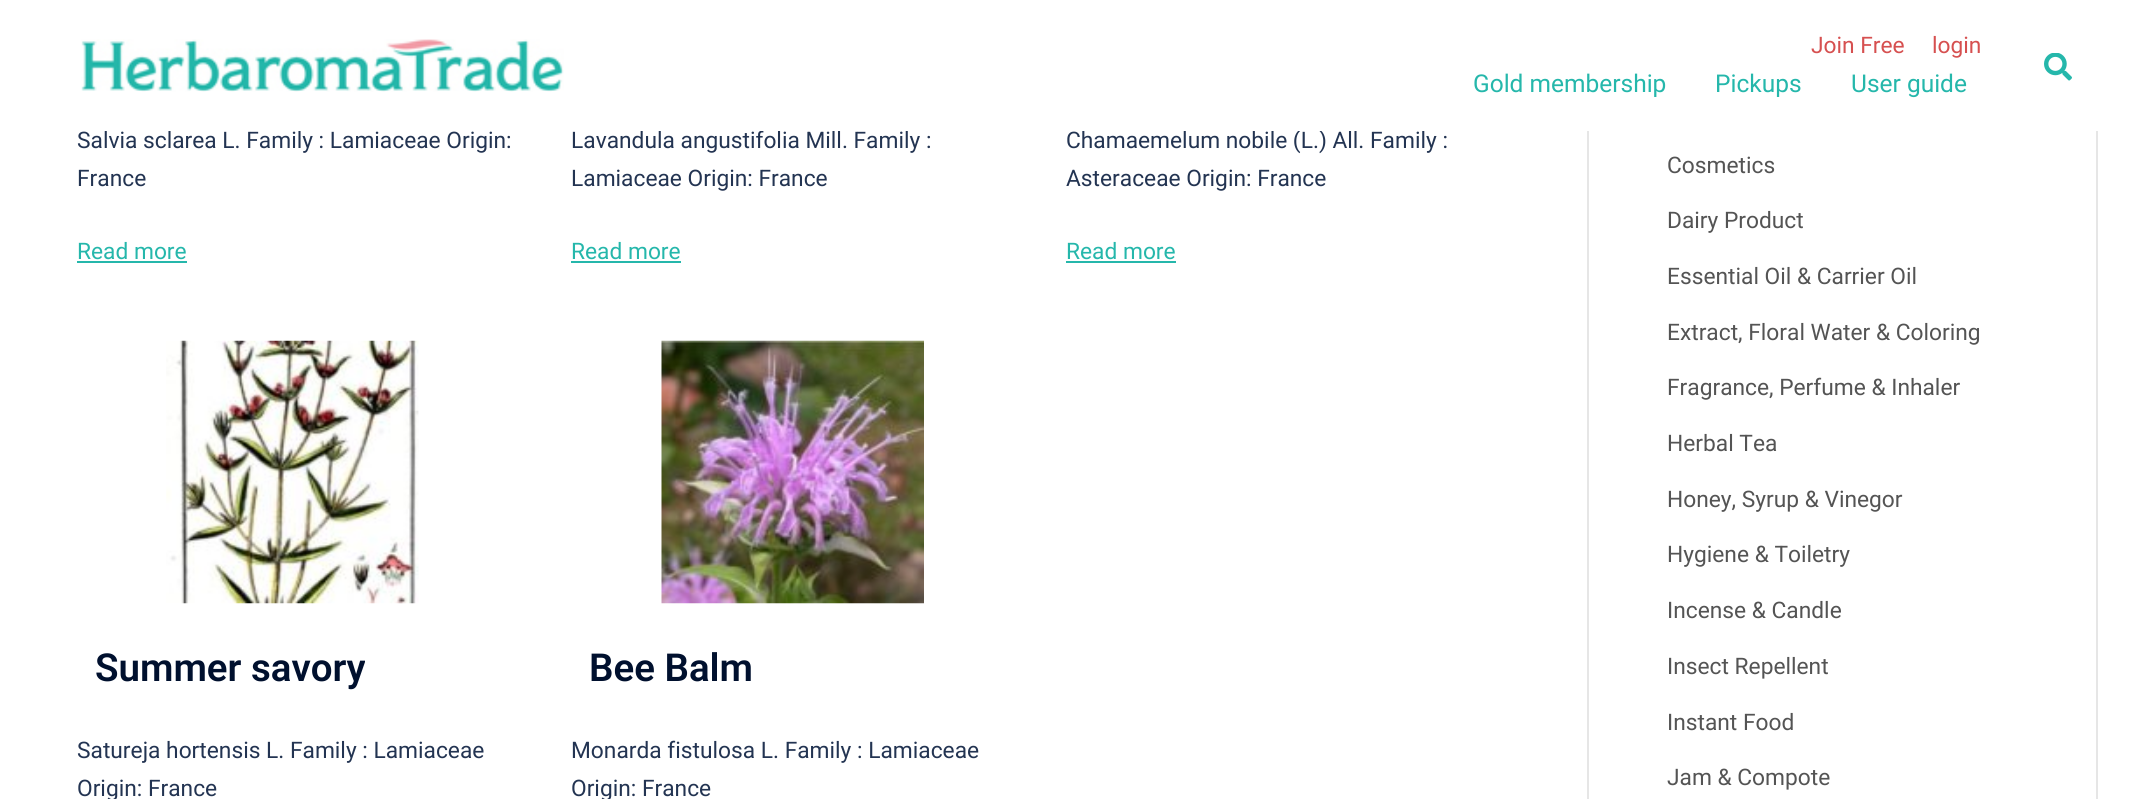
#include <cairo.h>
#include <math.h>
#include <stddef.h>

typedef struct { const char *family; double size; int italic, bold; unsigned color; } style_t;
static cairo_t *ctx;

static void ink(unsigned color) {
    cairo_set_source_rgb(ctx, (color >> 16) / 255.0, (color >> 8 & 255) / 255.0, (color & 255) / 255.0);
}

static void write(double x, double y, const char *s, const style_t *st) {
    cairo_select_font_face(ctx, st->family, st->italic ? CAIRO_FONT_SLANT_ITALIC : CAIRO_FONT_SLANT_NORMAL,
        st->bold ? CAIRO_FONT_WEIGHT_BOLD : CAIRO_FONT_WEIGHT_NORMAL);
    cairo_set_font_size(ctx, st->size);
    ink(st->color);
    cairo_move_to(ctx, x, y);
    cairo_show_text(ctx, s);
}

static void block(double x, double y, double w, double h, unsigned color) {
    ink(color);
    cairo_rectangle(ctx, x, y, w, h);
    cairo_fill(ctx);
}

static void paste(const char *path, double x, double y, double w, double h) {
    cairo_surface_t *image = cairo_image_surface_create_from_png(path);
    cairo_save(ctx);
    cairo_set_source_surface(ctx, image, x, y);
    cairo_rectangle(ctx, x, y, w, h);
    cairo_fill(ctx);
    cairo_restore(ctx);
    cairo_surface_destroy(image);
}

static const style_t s1 = {"Roboto", 22.75, 0, 0, 0x233452};
static const style_t s2 = {"Roboto", 22.75, 0, 0, 0xd65050};
static const style_t s3 = {"Roboto", 24.5, 0, 0, 0x25b7ab};
static const style_t s4 = {"Roboto", 22.75, 0, 0, 0x25b7ab};
static const style_t s5 = {"Roboto SemiBold", 38.5, 0, 0, 0x00102e};
static const style_t s6 = {"Roboto", 22.75, 0, 0, 0x545454};

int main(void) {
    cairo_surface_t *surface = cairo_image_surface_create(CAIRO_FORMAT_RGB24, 2148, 799);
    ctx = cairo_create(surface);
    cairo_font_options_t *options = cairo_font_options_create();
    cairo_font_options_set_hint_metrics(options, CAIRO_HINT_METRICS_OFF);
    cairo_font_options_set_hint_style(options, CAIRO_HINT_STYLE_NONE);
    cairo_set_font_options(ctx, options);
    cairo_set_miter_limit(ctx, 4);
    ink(0xffffff);
    cairo_paint(ctx);
    write(77, 148, "Salvia sclarea L. Family : Lamiaceae Origin:", &s1);
    write(571, 148, "Lavandula angustifolia Mill. Family :", &s1);
    write(1066, 148, "Chamaemelum nobile (L.) All. Family :", &s1);
    cairo_rectangle(ctx, 1588, -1, 509, 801);
    ink(0xe6e6e6);
    cairo_stroke(ctx);
    block(104, 0, 1994, 131, 0xffffff);
    paste("pic1.png", 81, 39, 483, 53);
    write(1811, 53, "Join Free", &s2);
    write(1932, 53, "login", &s2);
    write(1473, 92, "Gold membership", &s3);
    write(1715, 92, "Pickups", &s3);
    write(1851, 92, "User guide", &s3);
    paste("pic2.png", 2044, 53, 28, 28);
    write(77, 186, "France", &s1);
    write(77, 259, "Read more", &s4);
    block(77, 261, 110, 2, 0x25b7ab);
    write(571, 186, "Lamiaceae Origin: France", &s1);
    write(571, 259, "Read more", &s4);
    block(571, 261, 110, 2, 0x25b7ab);
    write(1066, 186, "Asteraceae Origin: France", &s1);
    write(1066, 259, "Read more", &s4);
    block(1066, 261, 110, 2, 0x25b7ab);
    paste("pic3.png", 166, 340, 253, 264);
    write(95, 681, "Summer savory", &s5);
    write(77, 758, "Satureja hortensis L. Family : Lamiaceae", &s1);
    write(77, 796, "Origin: France", &s1);
    paste("pic4.png", 661, 340, 263, 264);
    write(589, 681, "Bee Balm", &s5);
    write(571, 758, "Monarda fistulosa L. Family : Lamiaceae", &s1);
    write(571, 796, "Origin: France", &s1);
    write(1667, 173, "Cosmetics", &s6);
    write(1667, 228, "Dairy Product", &s6);
    write(1667, 284, "Essential Oil & Carrier Oil", &s6);
    write(1667, 340, "Extract, Floral Water & Coloring", &s6);
    write(1667, 395, "Fragrance, Perfume & Inhaler", &s6);
    write(1667, 451, "Herbal Tea", &s6);
    write(1667, 507, "Honey, Syrup & Vinegor", &s6);
    write(1667, 562, "Hygiene & Toiletry", &s6);
    write(1667, 618, "Incense & Candle", &s6);
    write(1667, 674, "Insect Repellent", &s6);
    write(1667, 730, "Instant Food", &s6);
    write(1667, 785, "Jam & Compote", &s6);
    cairo_surface_write_to_png(surface, "screenshot.png");
    cairo_font_options_destroy(options);
    cairo_destroy(ctx);
    cairo_surface_destroy(surface);
    return 0;
}
